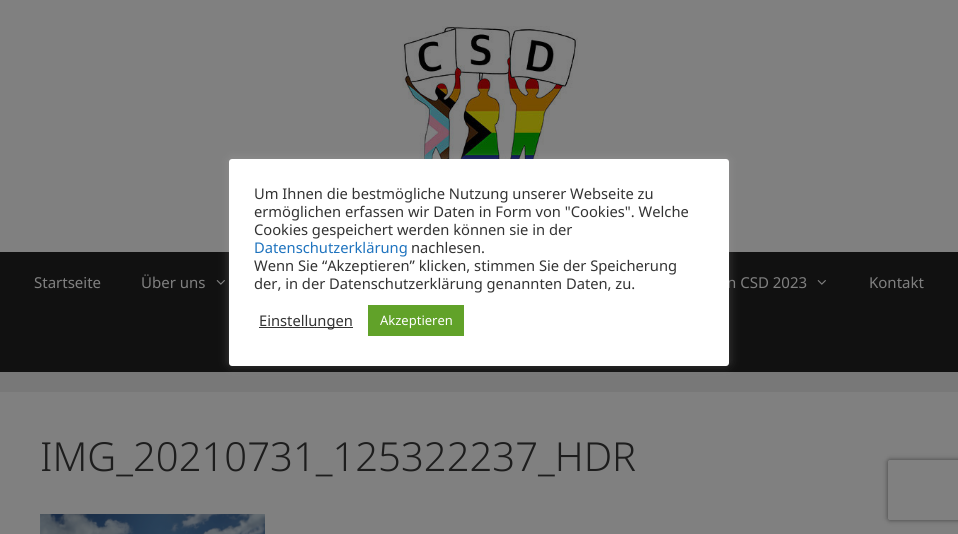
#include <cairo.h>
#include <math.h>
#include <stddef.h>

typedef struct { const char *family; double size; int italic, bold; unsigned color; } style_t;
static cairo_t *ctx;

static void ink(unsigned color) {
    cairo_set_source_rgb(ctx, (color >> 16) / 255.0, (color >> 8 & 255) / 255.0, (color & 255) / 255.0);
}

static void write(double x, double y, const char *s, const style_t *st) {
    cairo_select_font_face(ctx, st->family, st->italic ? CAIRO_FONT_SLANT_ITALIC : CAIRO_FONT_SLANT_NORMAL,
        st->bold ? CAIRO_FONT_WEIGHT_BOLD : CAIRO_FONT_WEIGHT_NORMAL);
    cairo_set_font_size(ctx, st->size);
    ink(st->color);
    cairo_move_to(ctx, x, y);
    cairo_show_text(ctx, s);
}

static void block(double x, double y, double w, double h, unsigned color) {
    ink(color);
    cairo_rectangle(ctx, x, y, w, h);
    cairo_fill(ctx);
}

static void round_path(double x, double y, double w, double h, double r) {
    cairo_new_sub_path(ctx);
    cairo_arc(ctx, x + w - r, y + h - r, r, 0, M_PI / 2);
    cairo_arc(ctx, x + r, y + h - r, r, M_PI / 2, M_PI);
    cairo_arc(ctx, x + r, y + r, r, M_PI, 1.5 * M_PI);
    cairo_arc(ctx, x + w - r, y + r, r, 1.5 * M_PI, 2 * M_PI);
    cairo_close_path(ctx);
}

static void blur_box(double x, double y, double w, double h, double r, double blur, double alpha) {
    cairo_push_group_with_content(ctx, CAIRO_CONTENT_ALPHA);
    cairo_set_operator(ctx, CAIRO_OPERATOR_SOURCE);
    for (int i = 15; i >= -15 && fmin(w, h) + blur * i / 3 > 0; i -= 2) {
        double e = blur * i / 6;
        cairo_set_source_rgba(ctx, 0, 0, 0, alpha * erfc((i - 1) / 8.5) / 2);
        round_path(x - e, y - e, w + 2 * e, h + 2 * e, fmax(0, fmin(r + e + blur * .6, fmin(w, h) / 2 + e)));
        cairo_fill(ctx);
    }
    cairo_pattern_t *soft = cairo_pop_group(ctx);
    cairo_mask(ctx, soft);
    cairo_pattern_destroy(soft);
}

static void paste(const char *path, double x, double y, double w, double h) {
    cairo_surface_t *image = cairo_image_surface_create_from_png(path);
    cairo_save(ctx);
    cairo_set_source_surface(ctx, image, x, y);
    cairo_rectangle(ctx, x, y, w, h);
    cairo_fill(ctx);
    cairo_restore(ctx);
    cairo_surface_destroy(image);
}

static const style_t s1 = {"Noto Sans", 15, 0, 0, 0x808080};
static const style_t s2 = {"Noto Sans", 14.7, 0, 0, 0x333333};
static const style_t s3 = {"Noto Sans", 14.7, 0, 0, 0x1e73be};
static const style_t s4 = {"Noto Sans", 13, 0, 0, 0xffffff};
static const style_t s5 = {"Noto Sans Light", 40, 0, 0, 0x1d1d1d};

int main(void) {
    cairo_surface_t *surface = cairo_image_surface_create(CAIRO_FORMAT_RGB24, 958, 534);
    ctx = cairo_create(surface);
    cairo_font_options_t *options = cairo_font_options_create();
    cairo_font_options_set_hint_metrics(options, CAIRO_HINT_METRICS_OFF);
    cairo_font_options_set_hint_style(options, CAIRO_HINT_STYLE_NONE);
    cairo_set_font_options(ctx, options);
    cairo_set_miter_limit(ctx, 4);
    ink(0x787878);
    cairo_paint(ctx);
    block(0, 0, 958, 252, 0x808080);
    paste("pic1.png", 391, 26, 187, 133);
    block(0, 252, 958, 120, 0x111111);
    paste("pic2.png", 216, 280, 9, 5);
    ink(0xacabab);
    blur_box(229, 158, 500, 207, 3, 5, 0.3);
    write(727, 288, "n CSD 2023", &s1);
    ink(0xffffff);
    round_path(229, 159, 500, 207, 3);
    cairo_fill(ctx);
    write(254, 199, "Um Ihnen die bestmögliche Nutzung unserer Webseite zu", &s2);
    write(254, 217, "ermöglichen erfassen wir Daten in Form von \"Cookies\". Welche", &s2);
    write(254, 235, "Cookies gespeichert werden können sie in der", &s2);
    write(254, 253, "Datenschutzerklärung", &s3);
    write(411, 253, "nachlesen.", &s2);
    write(254, 271, "Wenn Sie “Akzeptieren” klicken, stimmen Sie der Speicherung", &s2);
    write(254, 289, "der, in der Datenschutzerklärung genannten Daten, zu.", &s2);
    block(259, 327, 94, 1, 0x333333);
    write(259, 326, "Einstellungen", &s2);
    block(368, 305, 96, 31, 0x61a229);
    write(380, 325, "Akzeptieren", &s4);
    write(34, 288, "Startseite", &s1);
    write(141, 288, "Über uns", &s1);
    paste("pic2.png", 817, 280, 9, 5);
    write(869, 288, "Kontakt", &s1);
    block(0, 392, 958, 142, 0x808080);
    write(40, 471, "IMG_20210731_125322237_HDR", &s5);
    paste("pic3.png", 40, 514, 225, 20);
    cairo_save(ctx);
    cairo_set_fill_rule(ctx, CAIRO_FILL_RULE_EVEN_ODD);
    cairo_new_path(ctx);
    cairo_move_to(ctx, 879, 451);
    cairo_line_to(ctx, 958, 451);
    cairo_line_to(ctx, 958, 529);
    cairo_line_to(ctx, 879, 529);
    cairo_close_path(ctx);
    cairo_move_to(ctx, 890, 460);
    cairo_line_to(ctx, 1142, 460);
    cairo_curve_to(ctx, 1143, 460, 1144, 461, 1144, 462);
    cairo_line_to(ctx, 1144, 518);
    cairo_curve_to(ctx, 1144, 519, 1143, 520, 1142, 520);
    cairo_line_to(ctx, 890, 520);
    cairo_curve_to(ctx, 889, 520, 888, 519, 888, 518);
    cairo_line_to(ctx, 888, 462);
    cairo_curve_to(ctx, 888, 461, 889, 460, 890, 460);
    cairo_close_path(ctx);
    cairo_clip(ctx);
    ink(0x404040);
    blur_box(888, 460, 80, 60, 2, 2.5, 1);
    cairo_restore(ctx);
    cairo_surface_write_to_png(surface, "screenshot.png");
    cairo_font_options_destroy(options);
    cairo_destroy(ctx);
    cairo_surface_destroy(surface);
    return 0;
}
